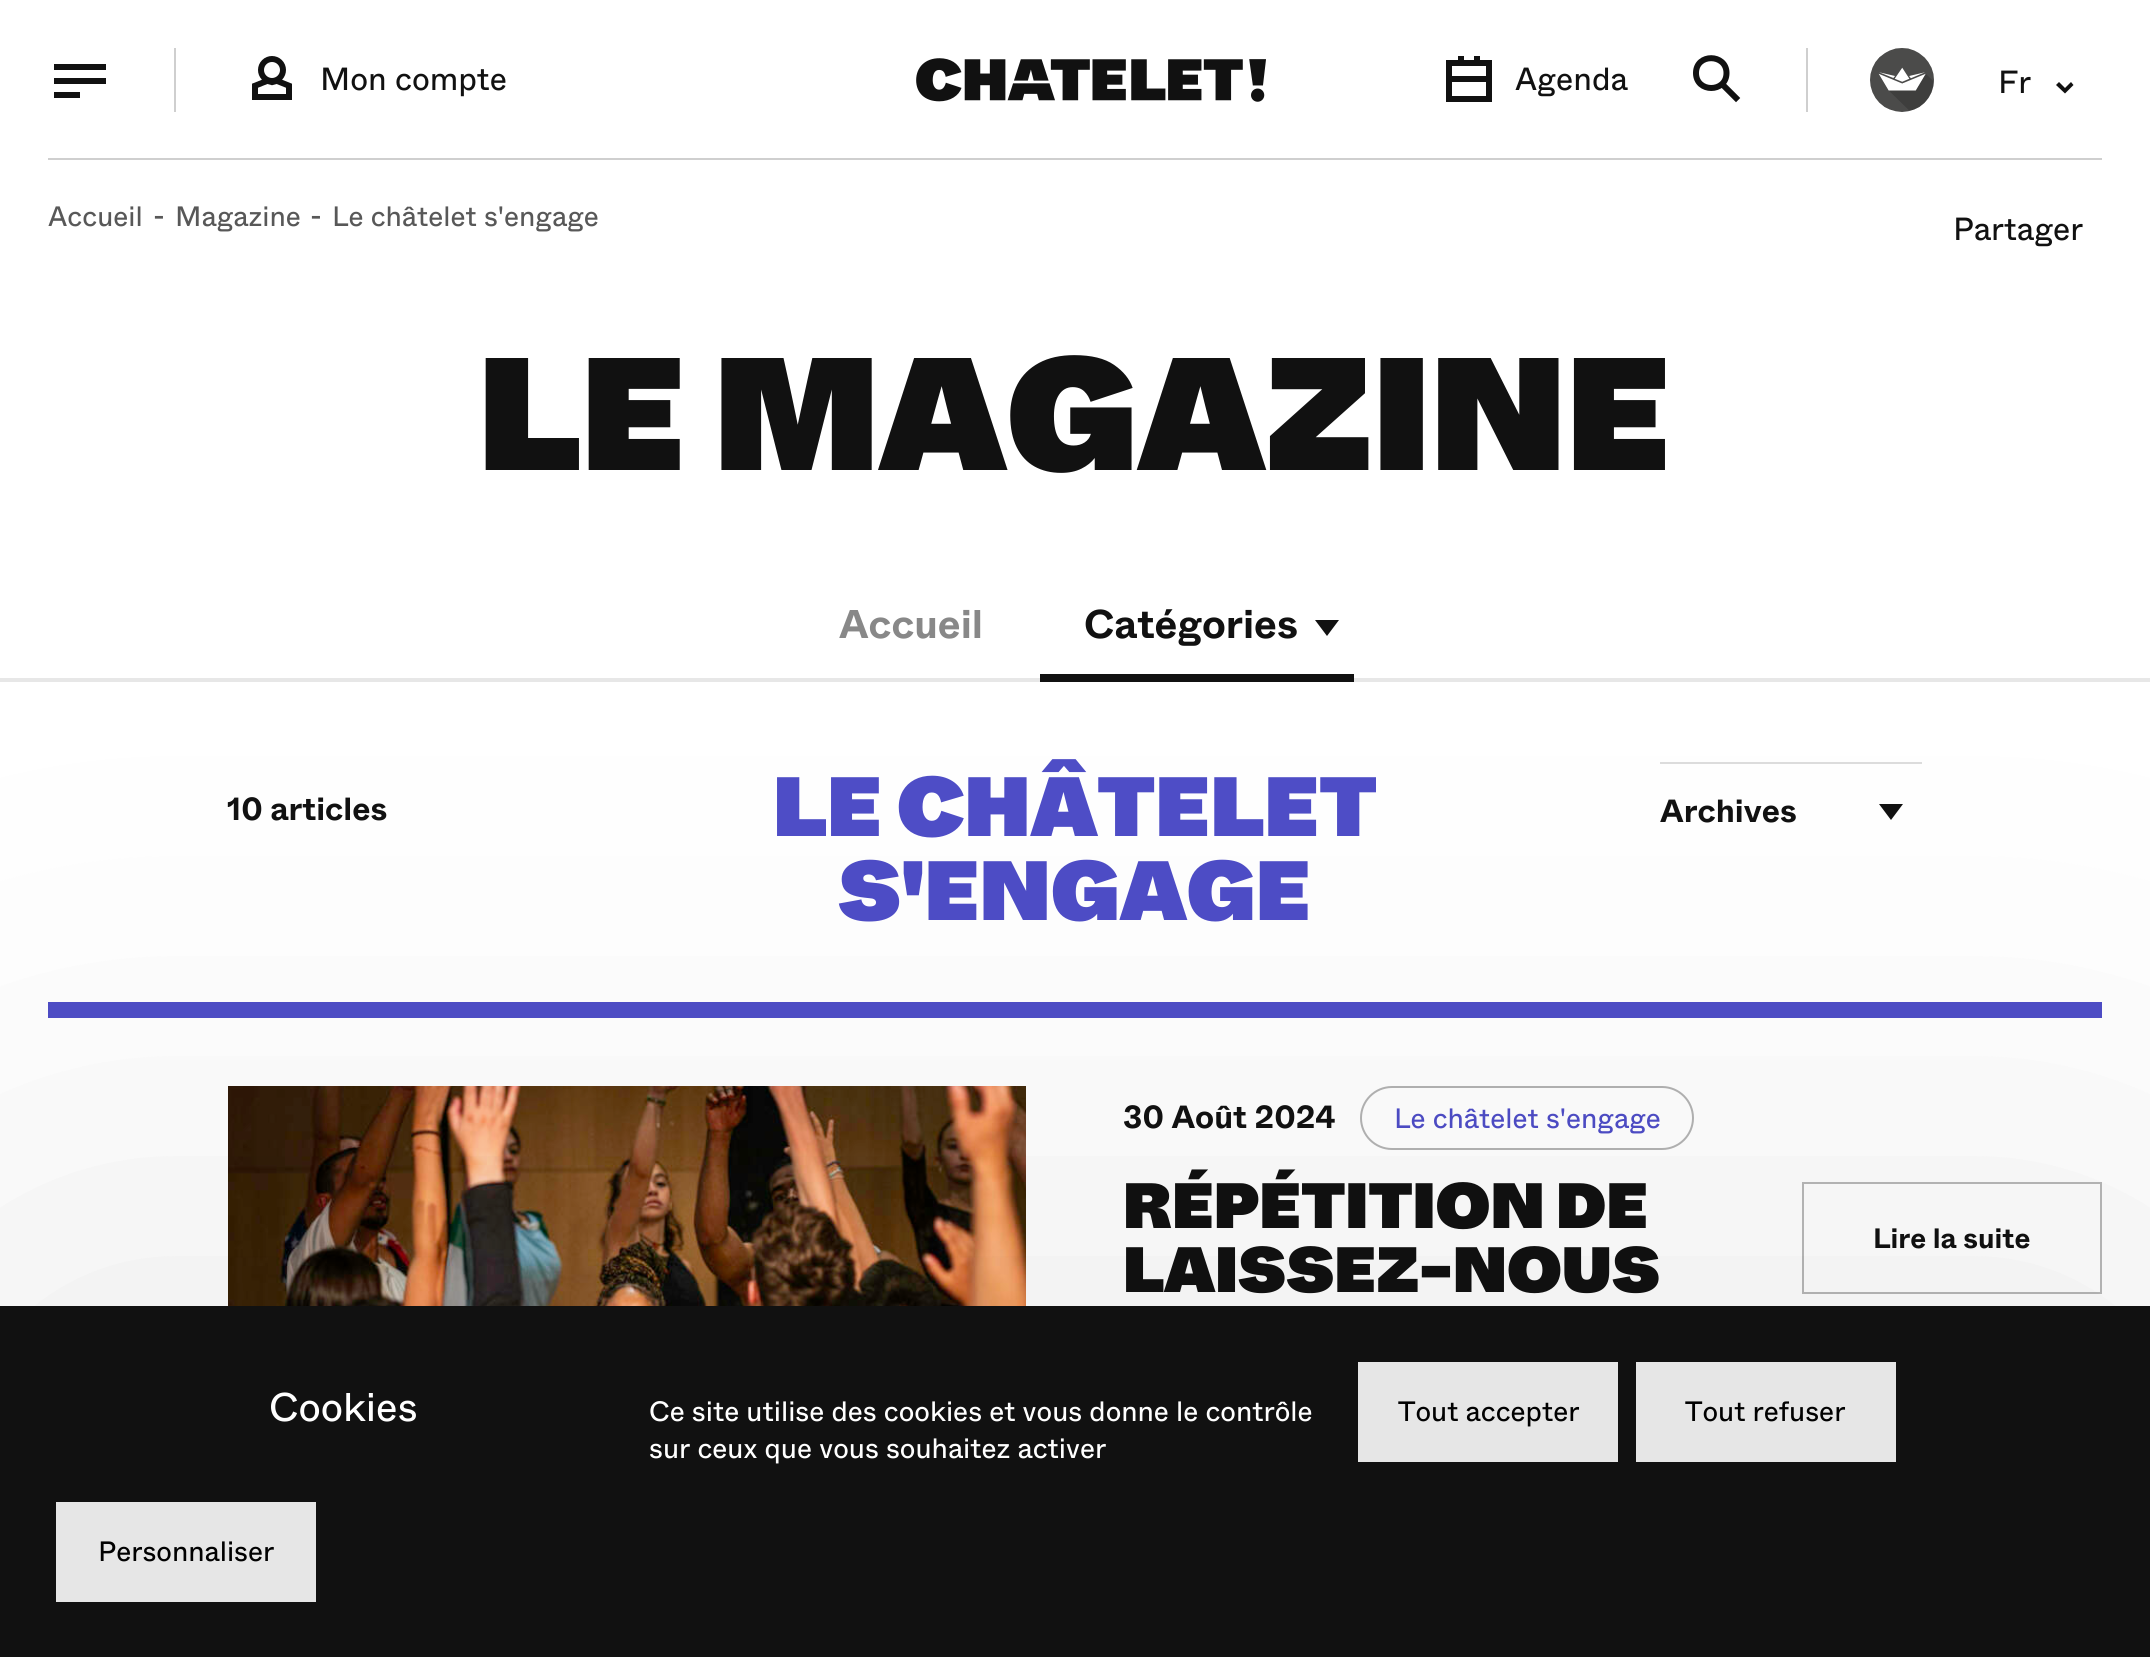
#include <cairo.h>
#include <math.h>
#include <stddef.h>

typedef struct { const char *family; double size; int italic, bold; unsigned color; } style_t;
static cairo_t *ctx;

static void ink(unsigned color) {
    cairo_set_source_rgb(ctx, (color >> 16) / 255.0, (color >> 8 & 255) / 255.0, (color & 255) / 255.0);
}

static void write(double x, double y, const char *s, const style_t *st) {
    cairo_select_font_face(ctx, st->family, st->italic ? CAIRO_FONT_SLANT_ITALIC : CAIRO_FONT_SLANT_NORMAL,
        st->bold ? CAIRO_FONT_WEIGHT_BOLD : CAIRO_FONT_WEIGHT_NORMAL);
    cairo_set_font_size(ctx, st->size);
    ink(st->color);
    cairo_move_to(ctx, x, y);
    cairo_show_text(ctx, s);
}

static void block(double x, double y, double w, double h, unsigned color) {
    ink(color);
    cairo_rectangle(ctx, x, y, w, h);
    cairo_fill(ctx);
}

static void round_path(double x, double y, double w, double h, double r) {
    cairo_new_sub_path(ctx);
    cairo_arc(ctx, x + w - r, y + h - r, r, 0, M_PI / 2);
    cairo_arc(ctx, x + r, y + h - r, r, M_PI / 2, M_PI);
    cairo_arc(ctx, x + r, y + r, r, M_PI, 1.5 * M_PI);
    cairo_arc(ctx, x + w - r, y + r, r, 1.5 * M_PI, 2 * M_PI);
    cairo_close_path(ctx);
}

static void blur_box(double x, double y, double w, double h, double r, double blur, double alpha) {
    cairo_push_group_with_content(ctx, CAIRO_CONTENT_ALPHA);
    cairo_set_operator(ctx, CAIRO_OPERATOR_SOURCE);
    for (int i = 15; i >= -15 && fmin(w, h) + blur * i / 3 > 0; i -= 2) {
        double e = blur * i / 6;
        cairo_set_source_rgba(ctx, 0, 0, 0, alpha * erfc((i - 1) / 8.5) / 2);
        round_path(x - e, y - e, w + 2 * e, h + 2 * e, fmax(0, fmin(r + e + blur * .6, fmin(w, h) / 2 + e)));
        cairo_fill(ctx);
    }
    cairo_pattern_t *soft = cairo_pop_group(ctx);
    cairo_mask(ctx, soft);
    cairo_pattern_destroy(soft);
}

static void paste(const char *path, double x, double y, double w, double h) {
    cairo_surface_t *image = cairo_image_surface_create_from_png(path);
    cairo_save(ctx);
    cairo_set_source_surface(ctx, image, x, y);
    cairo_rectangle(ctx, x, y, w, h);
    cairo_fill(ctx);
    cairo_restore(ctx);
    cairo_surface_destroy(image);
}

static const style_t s1 = {"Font", 32, 0, 0, 0x111111};
static const style_t s2 = {"Font", 28, 0, 0, 0x585858};
static const style_t s3 = {"Font Black", 160, 0, 0, 0x111111};
static const style_t s4 = {"Font", 40, 0, 1, 0x888888};
static const style_t s5 = {"Font", 40, 0, 1, 0x111111};
static const style_t s6 = {"Font", 32, 0, 1, 0x111111};
static const style_t s7 = {"Font Black", 84, 0, 0, 0x4e4dc7};
static const style_t s8 = {"Font", 28, 0, 0, 0x4e4dc7};
static const style_t s9 = {"Font Black", 64, 0, 0, 0x111111};
static const style_t s10 = {"Font", 28, 0, 1, 0x111111};
static const style_t s11 = {"Font", 40, 0, 0, 0xffffff};
static const style_t s12 = {"Font", 28, 0, 0, 0xffffff};
static const style_t s13 = {"Font", 28, 0, 0, 0x010101};

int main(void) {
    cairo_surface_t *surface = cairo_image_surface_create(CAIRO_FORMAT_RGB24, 2150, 1657);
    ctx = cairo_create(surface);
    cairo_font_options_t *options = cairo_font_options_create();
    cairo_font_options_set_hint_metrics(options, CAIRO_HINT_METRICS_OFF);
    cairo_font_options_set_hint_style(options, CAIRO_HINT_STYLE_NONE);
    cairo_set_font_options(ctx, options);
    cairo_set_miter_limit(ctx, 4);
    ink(0xffffff);
    cairo_paint(ctx);
    block(54, 64, 52, 6, 0x111111);
    block(54, 78, 52, 6, 0x111111);
    block(54, 92, 26, 6, 0x111111);
    block(174, 48, 2, 64, 0xcfcfcf);
    paste("pic1.png", 252, 56, 40, 44);
    write(320, 90, "Mon compte", &s1);
    paste("pic2.png", 916, 58, 350, 44);
    paste("pic3.png", 1446, 56, 46, 46);
    write(1515, 90, "Agenda", &s1);
    cairo_new_path(ctx);
    cairo_move_to(ctx, 1736, 98);
    cairo_line_to(ctx, 1722, 84);
    cairo_move_to(ctx, 1726.5, 73);
    cairo_curve_to(ctx, 1726.5, 93, 1696, 93, 1696, 73);
    cairo_curve_to(ctx, 1696, 53, 1726.5, 53.5, 1726.5, 73);
    cairo_close_path(ctx);
    cairo_set_line_width(ctx, 6);
    cairo_set_line_cap(ctx, CAIRO_LINE_CAP_SQUARE);
    cairo_set_line_join(ctx, CAIRO_LINE_JOIN_ROUND);
    cairo_stroke(ctx);
    block(1806, 48, 2, 64, 0xcfcfcf);
    paste("pic4.png", 1870, 48, 64, 64);
    write(1998, 93, "Fr", &s1);
    cairo_new_path(ctx);
    cairo_move_to(ctx, 2071, 82);
    cairo_line_to(ctx, 2073.5, 85);
    cairo_line_to(ctx, 2065, 93.5);
    cairo_line_to(ctx, 2056, 85);
    cairo_line_to(ctx, 2059, 82);
    cairo_line_to(ctx, 2065, 88);
    cairo_close_path(ctx);
    cairo_fill(ctx);
    block(48, 158, 2054, 2, 0xcfcfcf);
    write(48, 226, "Accueil", &s2);
    write(153, 226, "-", &s2);
    write(175, 226, "Magazine", &s2);
    write(310, 226, "-", &s2);
    write(332, 226, "Le châtelet s'engage", &s2);
    write(1953, 240, "Partager", &s1);
    write(478, 470, "LE MAGAZINE", &s3);
    write(839, 638, "Accueil", &s4);
    write(1084, 638, "Catégories", &s5);
    cairo_set_fill_rule(ctx, CAIRO_FILL_RULE_EVEN_ODD);
    cairo_new_path(ctx);
    cairo_move_to(ctx, 1315, 620);
    cairo_line_to(ctx, 1339, 620);
    cairo_line_to(ctx, 1327, 636);
    cairo_close_path(ctx);
    cairo_fill(ctx);
    block(0, 678, 2150, 4, 0xe7e7e7);
    block(1040, 674, 314, 8, 0x111111);
    block(48, 1002, 2054, 16, 0x4e4dc7);
    write(227, 820, "10 articles", &s6);
    write(773, 836, "LE CHÂTELET", &s7);
    write(838, 920, "S'ENGAGE", &s7);
    block(1660, 762, 262, 2, 0xdddddd);
    write(1660, 822, "Archives", &s6);
    cairo_new_path(ctx);
    cairo_move_to(ctx, 1879, 804);
    cairo_line_to(ctx, 1903, 804);
    cairo_line_to(ctx, 1891, 820);
    cairo_close_path(ctx);
    cairo_fill(ctx);
    paste("pic5.png", 228, 1086, 798, 220);
    write(1123, 1128, "30 Août 2024", &s6);
    round_path(1361, 1087, 332, 62, 31);
    ink(0xb3b3b3);
    cairo_set_line_width(ctx, 2);
    cairo_set_line_cap(ctx, CAIRO_LINE_CAP_BUTT);
    cairo_set_line_join(ctx, CAIRO_LINE_JOIN_MITER);
    cairo_stroke(ctx);
    write(1394, 1128, "Le châtelet s'engage", &s8);
    write(1123, 1228, "RÉPÉTITION DE", &s9);
    write(1123, 1292, "LAISSEZ-NOUS", &s9);
    cairo_rectangle(ctx, 1803, 1183, 298, 110);
    ink(0xb8b8b8);
    cairo_stroke(ctx);
    write(1873, 1248, "Lire la suite", &s10);
    ink(0x000000);
    blur_box(0, 1306, 2150, 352, 0, 300, 0.1);
    block(0, 1306, 2150, 351, 0x111111);
    write(269, 1421, "Cookies", &s11);
    write(649, 1421, "Ce site utilise des cookies et vous donne le contrôle", &s12);
    write(649, 1458, "sur ceux que vous souhaitez activer", &s12);
    block(1358, 1362, 260, 100, 0xe6e6e6);
    write(1398, 1421, "Tout accepter", &s13);
    block(1636, 1362, 260, 100, 0xe6e6e6);
    write(1685, 1421, "Tout refuser", &s13);
    block(56, 1502, 260, 100, 0xe6e6e6);
    write(98, 1561, "Personnaliser", &s13);
    cairo_surface_write_to_png(surface, "screenshot.png");
    cairo_font_options_destroy(options);
    cairo_destroy(ctx);
    cairo_surface_destroy(surface);
    return 0;
}
